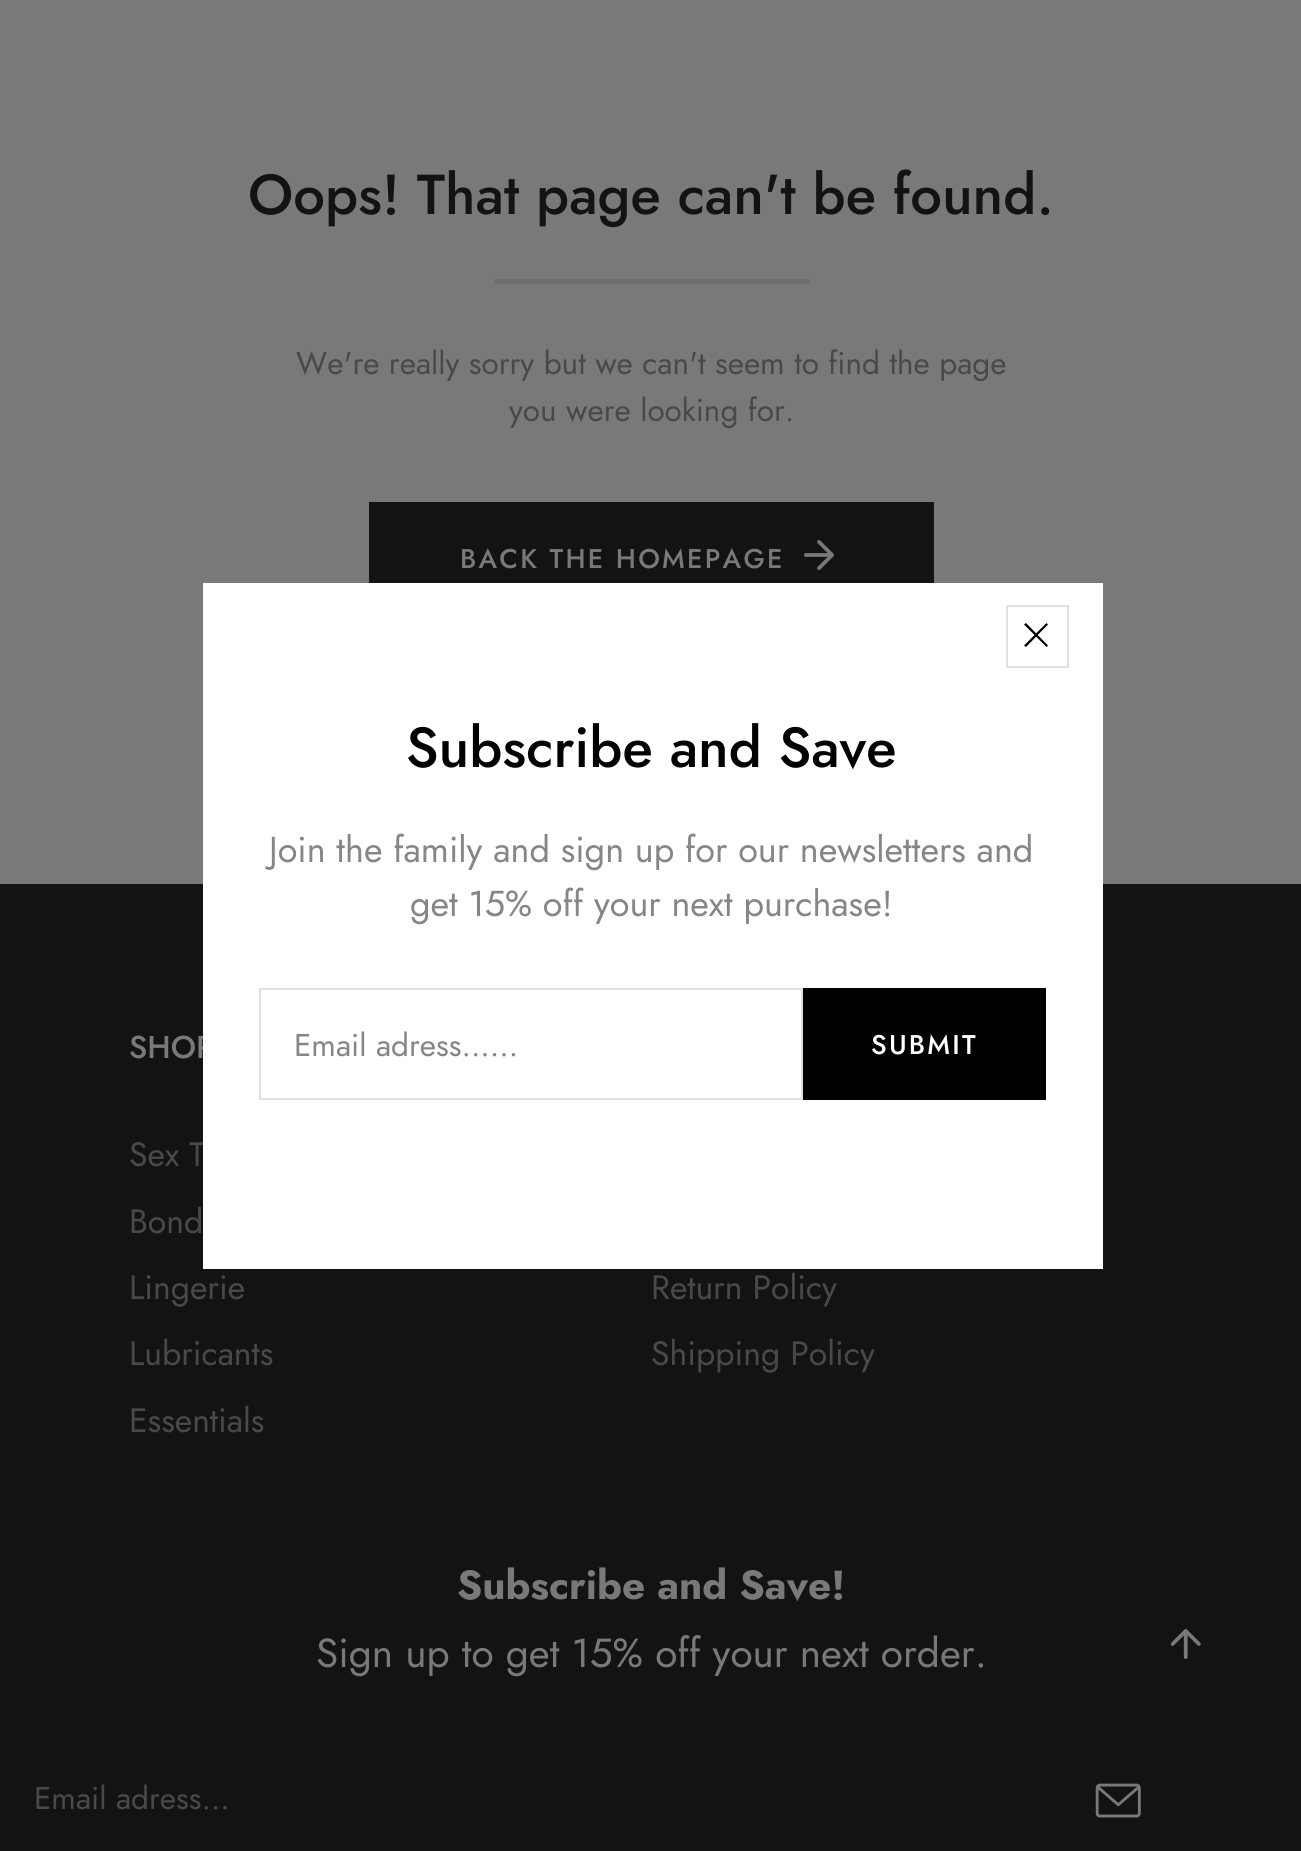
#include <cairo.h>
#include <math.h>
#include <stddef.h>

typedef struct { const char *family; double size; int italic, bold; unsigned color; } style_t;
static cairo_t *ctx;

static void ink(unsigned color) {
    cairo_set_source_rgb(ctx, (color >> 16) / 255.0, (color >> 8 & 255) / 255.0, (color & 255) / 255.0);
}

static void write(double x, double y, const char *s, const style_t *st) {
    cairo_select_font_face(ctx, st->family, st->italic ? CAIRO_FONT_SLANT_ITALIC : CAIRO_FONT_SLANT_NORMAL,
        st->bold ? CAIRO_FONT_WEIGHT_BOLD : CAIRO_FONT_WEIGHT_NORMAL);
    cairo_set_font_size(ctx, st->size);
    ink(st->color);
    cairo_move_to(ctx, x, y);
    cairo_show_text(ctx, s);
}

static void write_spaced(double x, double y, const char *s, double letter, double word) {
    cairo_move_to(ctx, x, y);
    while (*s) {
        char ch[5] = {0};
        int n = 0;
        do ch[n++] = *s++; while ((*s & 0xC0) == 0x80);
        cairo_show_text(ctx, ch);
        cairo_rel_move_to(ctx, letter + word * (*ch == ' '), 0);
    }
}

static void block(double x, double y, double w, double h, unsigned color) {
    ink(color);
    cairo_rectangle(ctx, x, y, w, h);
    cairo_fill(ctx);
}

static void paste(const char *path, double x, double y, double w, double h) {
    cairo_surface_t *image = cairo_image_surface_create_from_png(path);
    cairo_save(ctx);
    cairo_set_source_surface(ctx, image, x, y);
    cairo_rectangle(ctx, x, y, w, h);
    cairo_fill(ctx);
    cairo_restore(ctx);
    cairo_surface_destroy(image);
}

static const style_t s1 = {"Jost Medium", 56.25, 0, 0, 0x131313};
static const style_t s2 = {"Jost", 31.5, 0, 0, 0x494949};
static const style_t s3 = {"Jost Medium", 31.5, 0, 0, 0x797979};
static const style_t s4 = {"Jost", 33.75, 0, 0, 0x494949};
static const style_t s5 = {"Jost Medium", 56.25, 0, 0, 0x000000};
static const style_t s6 = {"Jost", 36, 0, 0, 0x868686};
static const style_t s7 = {"Jost", 31.5, 0, 0, 0x868686};
static const style_t s8 = {"Jost", 40.5, 0, 1, 0x797979};
static const style_t s9 = {"Jost", 40.5, 0, 0, 0x797979};

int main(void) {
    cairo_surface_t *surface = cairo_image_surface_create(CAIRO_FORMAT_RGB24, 1301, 1851);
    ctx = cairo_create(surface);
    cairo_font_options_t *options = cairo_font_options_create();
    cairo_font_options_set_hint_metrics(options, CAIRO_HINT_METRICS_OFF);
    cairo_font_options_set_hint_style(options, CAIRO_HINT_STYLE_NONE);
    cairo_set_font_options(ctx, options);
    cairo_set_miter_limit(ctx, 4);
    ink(0x797979);
    cairo_paint(ctx);
    write(248, 214, "Oops! That page can't be found.", &s1);
    block(495, 279, 315, 5, 0x6d6d6d);
    write(296, 374, "We're really sorry but we can't seem to find the page", &s2);
    write(509, 421, "you were looking for.", &s2);
    block(369, 502, 565, 81, 0x131313);
    cairo_select_font_face(ctx, "Jost Medium", CAIRO_FONT_SLANT_NORMAL, CAIRO_FONT_WEIGHT_NORMAL);
    cairo_set_font_size(ctx, 27);
    ink(0x797979);
    write_spaced(460, 568, "BACK THE HOMEPAGE", 2.25, 0);
    paste("pic1.png", 804, 540, 30, 30);
    block(0, 884, 1301, 967, 0x131313);
    write(129, 1058, "SHOP", &s3);
    write(129, 1166, "Sex T", &s4);
    block(203, 583, 900, 686, 0xffffff);
    cairo_rectangle(ctx, 1007, 606, 61, 61);
    ink(0xe1e1e1);
    cairo_stroke(ctx);
    ink(0x000000);
    cairo_new_path(ctx);
    cairo_move_to(ctx, 1024, 645.5);
    cairo_line_to(ctx, 1046.5, 623);
    cairo_line_to(ctx, 1048, 624.5);
    cairo_line_to(ctx, 1026, 647);
    cairo_close_path(ctx);
    cairo_fill(ctx);
    cairo_new_path(ctx);
    cairo_move_to(ctx, 1026, 623);
    cairo_line_to(ctx, 1048, 645.5);
    cairo_line_to(ctx, 1046.5, 647);
    cairo_line_to(ctx, 1024, 624.5);
    cairo_close_path(ctx);
    cairo_fill(ctx);
    write(406, 767, "Subscribe and Save", &s5);
    write(269, 862, "Join the family and sign up for our newsletters and", &s6);
    write(410, 916, "get 15% off your next purchase!", &s6);
    cairo_rectangle(ctx, 260, 989, 542, 110);
    ink(0xe1e1e1);
    cairo_stroke(ctx);
    write(294, 1056, "Email adress......", &s7);
    block(803, 988, 243, 112, 0x000000);
    cairo_select_font_face(ctx, "Jost Medium", CAIRO_FONT_SLANT_NORMAL, CAIRO_FONT_WEIGHT_NORMAL);
    cairo_set_font_size(ctx, 27);
    ink(0xffffff);
    write_spaced(871, 1054, "SUBMIT", 2.25, 0);
    write(129, 1233, "Bond", &s4);
    write(129, 1299, "Lingerie", &s4);
    write(129, 1365, "Lubricants", &s4);
    write(129, 1432, "Essentials", &s4);
    write(651, 1299, "Return Policy", &s4);
    write(651, 1365, "Shipping Policy", &s4);
    write(457, 1599, "Subscribe and Save!", &s8);
    write(316, 1667, "Sign up to get 15% off your next order.", &s9);
    write(34, 1809, "Email adress...", &s2);
    paste("pic2.png", 1095, 1783, 46, 35);
    paste("pic3.png", 1170, 1629, 31, 30);
    cairo_surface_write_to_png(surface, "screenshot.png");
    cairo_font_options_destroy(options);
    cairo_destroy(ctx);
    cairo_surface_destroy(surface);
    return 0;
}
